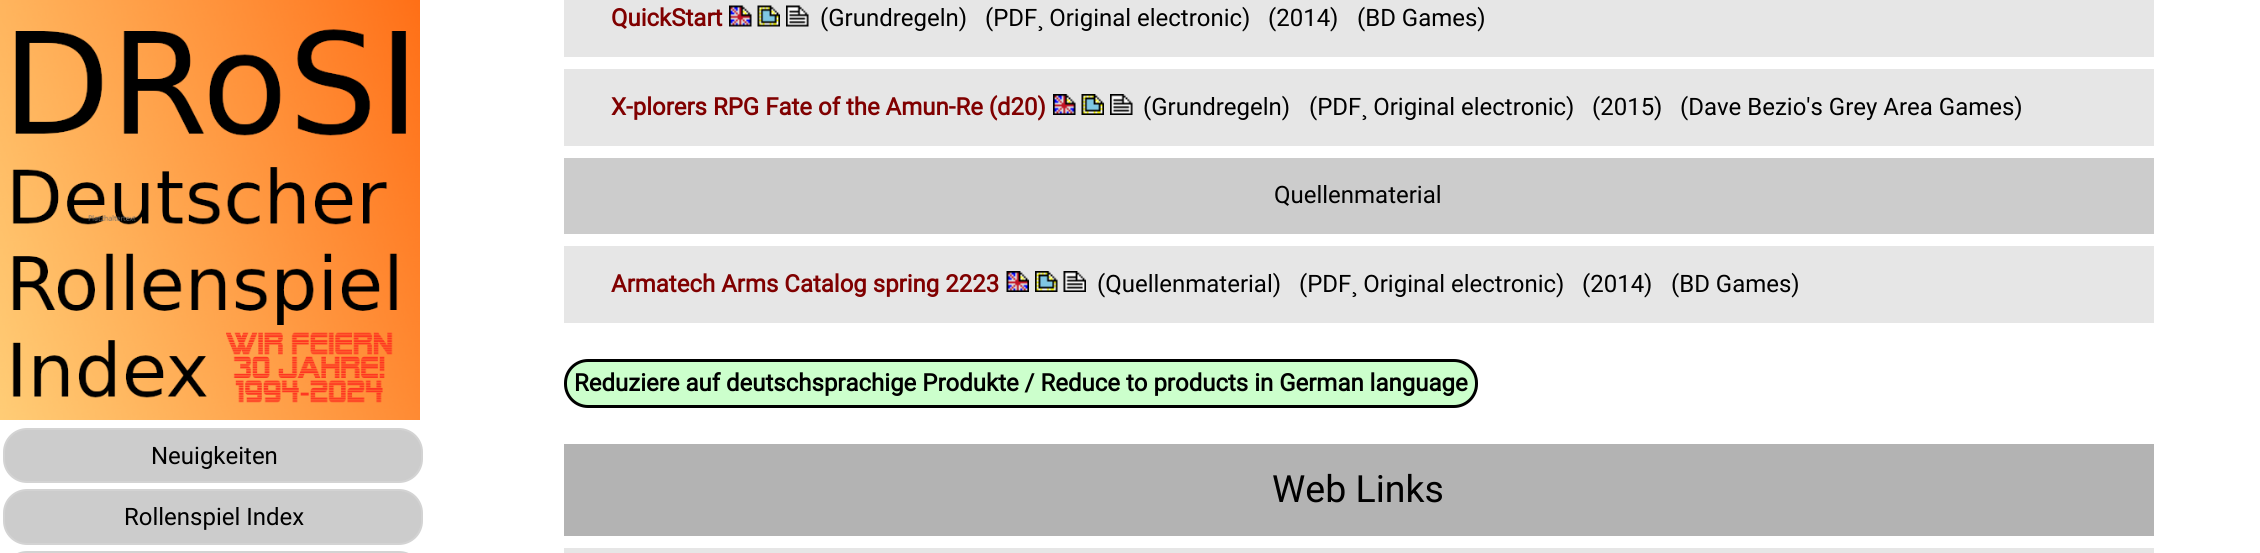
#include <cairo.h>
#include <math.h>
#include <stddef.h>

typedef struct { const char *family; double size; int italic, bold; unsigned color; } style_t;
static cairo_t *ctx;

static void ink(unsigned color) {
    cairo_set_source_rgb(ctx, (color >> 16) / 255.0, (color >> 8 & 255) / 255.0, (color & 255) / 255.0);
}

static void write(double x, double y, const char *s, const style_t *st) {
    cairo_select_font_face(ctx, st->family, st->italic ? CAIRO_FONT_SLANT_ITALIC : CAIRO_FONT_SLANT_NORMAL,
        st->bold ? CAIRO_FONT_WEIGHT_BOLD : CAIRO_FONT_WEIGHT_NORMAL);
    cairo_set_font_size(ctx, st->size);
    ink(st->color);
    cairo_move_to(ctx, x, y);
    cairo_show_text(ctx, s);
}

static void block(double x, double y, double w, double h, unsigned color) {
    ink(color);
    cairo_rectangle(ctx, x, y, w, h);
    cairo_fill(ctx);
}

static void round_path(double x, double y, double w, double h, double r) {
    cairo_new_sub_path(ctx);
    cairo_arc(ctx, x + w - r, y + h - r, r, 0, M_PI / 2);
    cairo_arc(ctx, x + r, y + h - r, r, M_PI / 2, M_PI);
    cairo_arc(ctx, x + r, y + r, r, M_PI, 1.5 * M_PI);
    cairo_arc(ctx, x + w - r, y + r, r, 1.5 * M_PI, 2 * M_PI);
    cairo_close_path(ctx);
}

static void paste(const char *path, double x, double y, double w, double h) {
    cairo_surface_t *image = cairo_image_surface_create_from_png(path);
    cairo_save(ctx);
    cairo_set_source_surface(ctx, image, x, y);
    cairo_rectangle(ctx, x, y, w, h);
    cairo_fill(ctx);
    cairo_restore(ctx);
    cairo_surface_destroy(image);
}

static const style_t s1 = {"Roboto", 24, 0, 0, 0x000000};
static const style_t s2 = {"Roboto", 24, 0, 1, 0x800000};
static const style_t s3 = {"Roboto", 24, 0, 1, 0x000000};
static const style_t s4 = {"Roboto", 37.5, 0, 0, 0x000000};

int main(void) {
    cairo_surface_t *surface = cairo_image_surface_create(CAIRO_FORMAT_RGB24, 2260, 553);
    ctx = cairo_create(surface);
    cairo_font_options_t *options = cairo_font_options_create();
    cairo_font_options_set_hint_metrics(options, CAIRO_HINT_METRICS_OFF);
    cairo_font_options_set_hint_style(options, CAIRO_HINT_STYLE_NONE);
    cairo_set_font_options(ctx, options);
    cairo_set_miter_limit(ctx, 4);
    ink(0xffffff);
    cairo_paint(ctx);
    paste("pic1.png", 0, 0, 420, 420);
    ink(0xcccccc);
    round_path(4, 429, 418, 53, 23);
    cairo_fill_preserve(ctx);
    ink(0xd3d3d3);
    cairo_stroke(ctx);
    write(151, 464, "Neuigkeiten", &s1);
    ink(0xcccccc);
    round_path(4, 490, 418, 54, 23);
    cairo_fill_preserve(ctx);
    ink(0xd3d3d3);
    cairo_stroke(ctx);
    write(124, 525, "Rollenspiel Index", &s1);
    round_path(4, 552, 418, 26, 23);
    ink(0xd3d3d3);
    cairo_stroke(ctx);
    block(564, 0, 1590, 57, 0xe6e6e6);
    write(611, 26, "QuickStart", &s2);
    paste("pic2.png", 729, 5, 23, 22);
    paste("pic3.png", 757, 5, 23, 22);
    paste("pic4.png", 786, 5, 23, 22);
    write(820, 26, "(Grundregeln)", &s1);
    write(985, 26, "(PDF¸ Original electronic)", &s1);
    write(1268, 26, "(2014)", &s1);
    write(1357, 26, "(BD Games)", &s1);
    block(564, 69, 1590, 77, 0xe6e6e6);
    write(611, 115, "X-plorers RPG Fate of the Amun-Re (d20)", &s2);
    paste("pic5.png", 1053, 94, 23, 21);
    paste("pic6.png", 1081, 94, 23, 21);
    paste("pic7.png", 1110, 94, 23, 21);
    write(1143, 115, "(Grundregeln)", &s1);
    write(1309, 115, "(PDF¸ Original electronic)", &s1);
    write(1592, 115, "(2015)", &s1);
    write(1680, 115, "(Dave Bezio's Grey Area Games)", &s1);
    block(564, 158, 1590, 76, 0xcccccc);
    write(1274, 203, "Quellenmaterial", &s1);
    block(564, 246, 1590, 77, 0xe6e6e6);
    write(611, 292, "Armatech Arms Catalog spring 2223", &s2);
    paste("pic8.png", 1006, 271, 23, 21);
    paste("pic9.png", 1035, 271, 23, 21);
    paste("pic10.png", 1063, 271, 23, 21);
    write(1097, 292, "(Quellenmaterial)", &s1);
    write(1299, 292, "(PDF¸ Original electronic)", &s1);
    write(1582, 292, "(2014)", &s1);
    write(1671, 292, "(BD Games)", &s1);
    ink(0xccffcc);
    round_path(565.5, 360.5, 911, 46, 22.5);
    cairo_fill_preserve(ctx);
    ink(0x000000);
    cairo_set_line_width(ctx, 3);
    cairo_stroke(ctx);
    write(574, 391, "Reduziere auf deutschsprachige Produkte / Reduce to products in German language", &s3);
    block(564, 444, 1590, 92, 0xb3b3b3);
    write(1272, 502, "Web Links", &s4);
    block(564, 548, 1590, 5, 0xe6e6e6);
    cairo_surface_write_to_png(surface, "screenshot.png");
    cairo_font_options_destroy(options);
    cairo_destroy(ctx);
    cairo_surface_destroy(surface);
    return 0;
}
